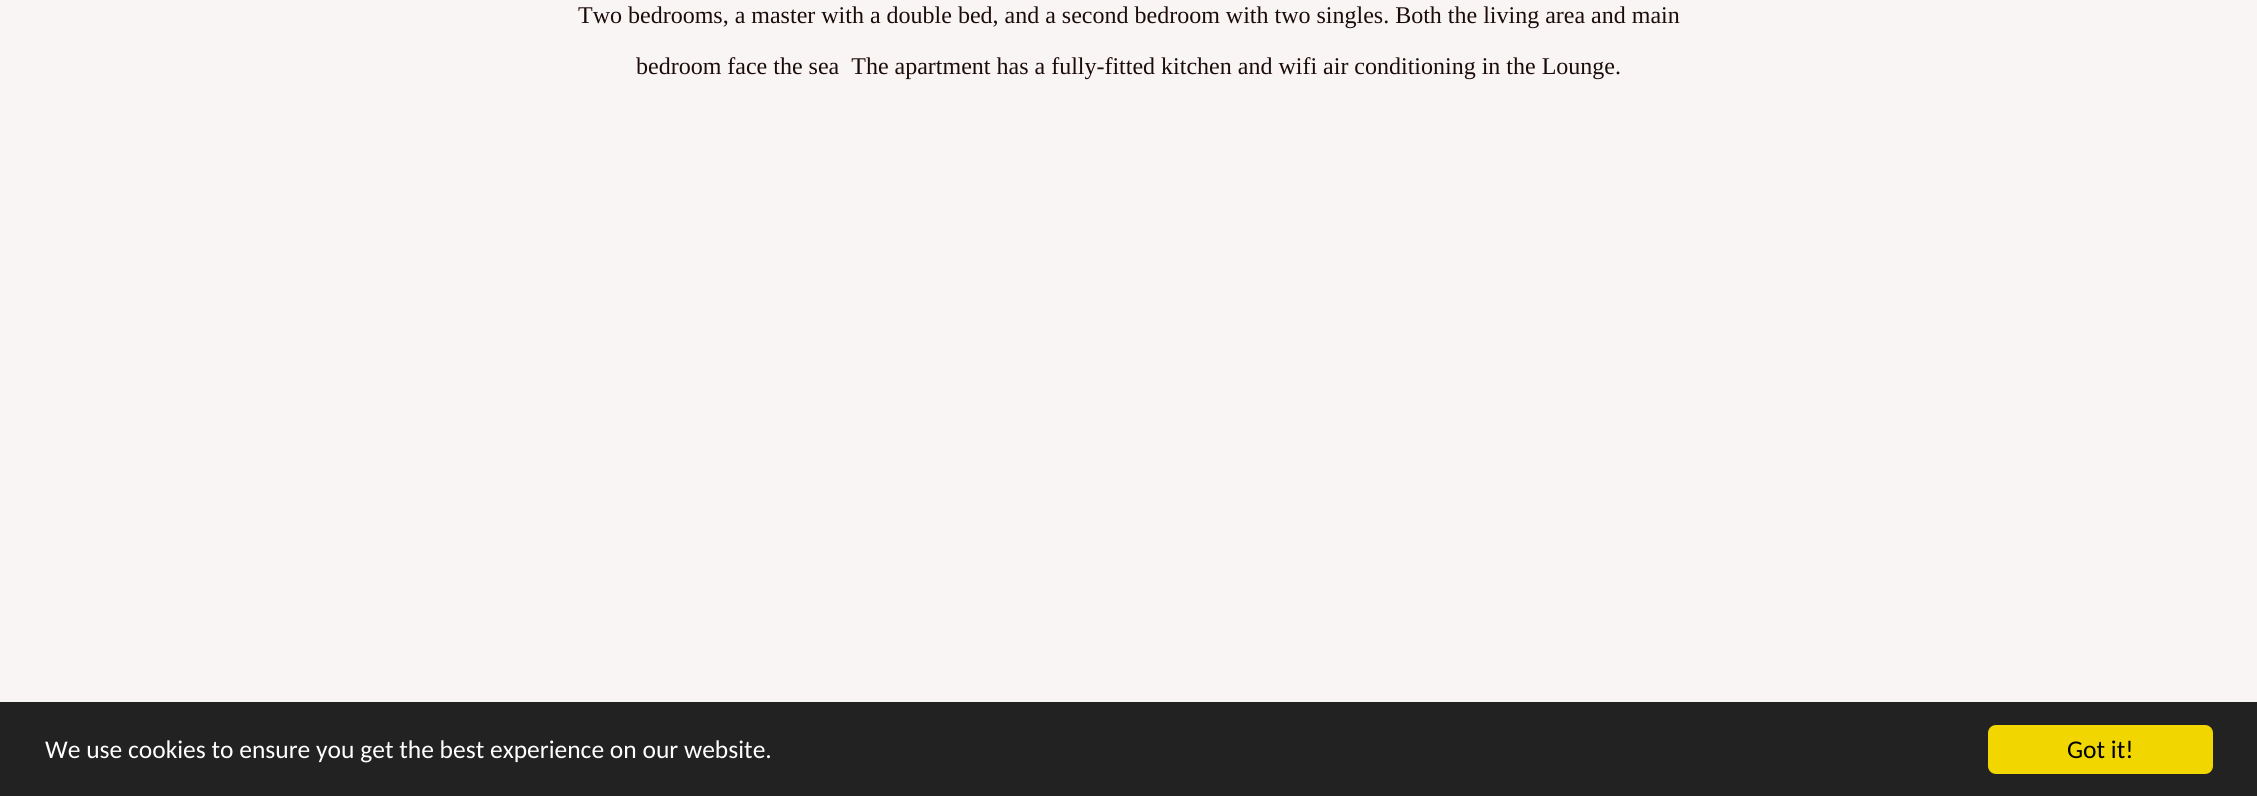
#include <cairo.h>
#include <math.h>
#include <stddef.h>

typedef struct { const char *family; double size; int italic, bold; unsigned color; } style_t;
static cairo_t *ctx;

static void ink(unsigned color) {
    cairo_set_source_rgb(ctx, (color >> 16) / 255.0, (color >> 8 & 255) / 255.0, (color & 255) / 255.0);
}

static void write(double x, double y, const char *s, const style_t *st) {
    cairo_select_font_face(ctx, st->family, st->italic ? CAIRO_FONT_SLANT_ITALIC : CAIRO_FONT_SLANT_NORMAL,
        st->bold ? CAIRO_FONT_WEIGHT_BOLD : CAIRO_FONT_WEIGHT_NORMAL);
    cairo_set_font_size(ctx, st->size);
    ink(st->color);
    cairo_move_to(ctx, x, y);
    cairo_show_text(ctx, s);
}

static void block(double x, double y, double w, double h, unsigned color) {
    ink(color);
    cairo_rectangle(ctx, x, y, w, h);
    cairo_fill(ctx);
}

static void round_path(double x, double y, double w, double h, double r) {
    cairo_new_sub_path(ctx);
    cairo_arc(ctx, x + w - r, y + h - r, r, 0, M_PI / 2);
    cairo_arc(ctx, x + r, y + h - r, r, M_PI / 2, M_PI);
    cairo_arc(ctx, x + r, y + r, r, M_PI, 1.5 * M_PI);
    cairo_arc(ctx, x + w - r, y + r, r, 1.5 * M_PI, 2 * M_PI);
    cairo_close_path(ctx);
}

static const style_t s1 = {"Liberation Serif", 24, 0, 0, 0x1b0b0b};
static const style_t s2 = {"Carlito", 25.5, 0, 0, 0xffffff};
static const style_t s3 = {"Carlito", 25.5, 0, 0, 0x000000};

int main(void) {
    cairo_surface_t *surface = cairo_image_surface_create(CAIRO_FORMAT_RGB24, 2257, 796);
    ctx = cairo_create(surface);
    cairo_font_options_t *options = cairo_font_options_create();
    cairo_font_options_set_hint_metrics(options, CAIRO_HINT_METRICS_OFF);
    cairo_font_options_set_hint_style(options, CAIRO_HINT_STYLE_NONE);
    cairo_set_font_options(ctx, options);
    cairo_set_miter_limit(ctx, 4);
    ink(0xfaf5f5);
    cairo_paint(ctx);
    write(578, 23, "Two bedrooms, a master with a double bed, and a second bedroom with two singles. Both the living area and main", &s1);
    write(636, 74, "bedroom face the sea  The apartment has a fully-fitted kitchen and wifi air conditioning in the Lounge.", &s1);
    block(0, 702, 2257, 94, 0x222222);
    write(45, 758, "We use cookies to ensure you get the best experience on our website.", &s2);
    ink(0xf1d600);
    round_path(1988, 725, 225, 49, 8);
    cairo_fill(ctx);
    write(2067, 758, "Got it!", &s3);
    cairo_surface_write_to_png(surface, "screenshot.png");
    cairo_font_options_destroy(options);
    cairo_destroy(ctx);
    cairo_surface_destroy(surface);
    return 0;
}
